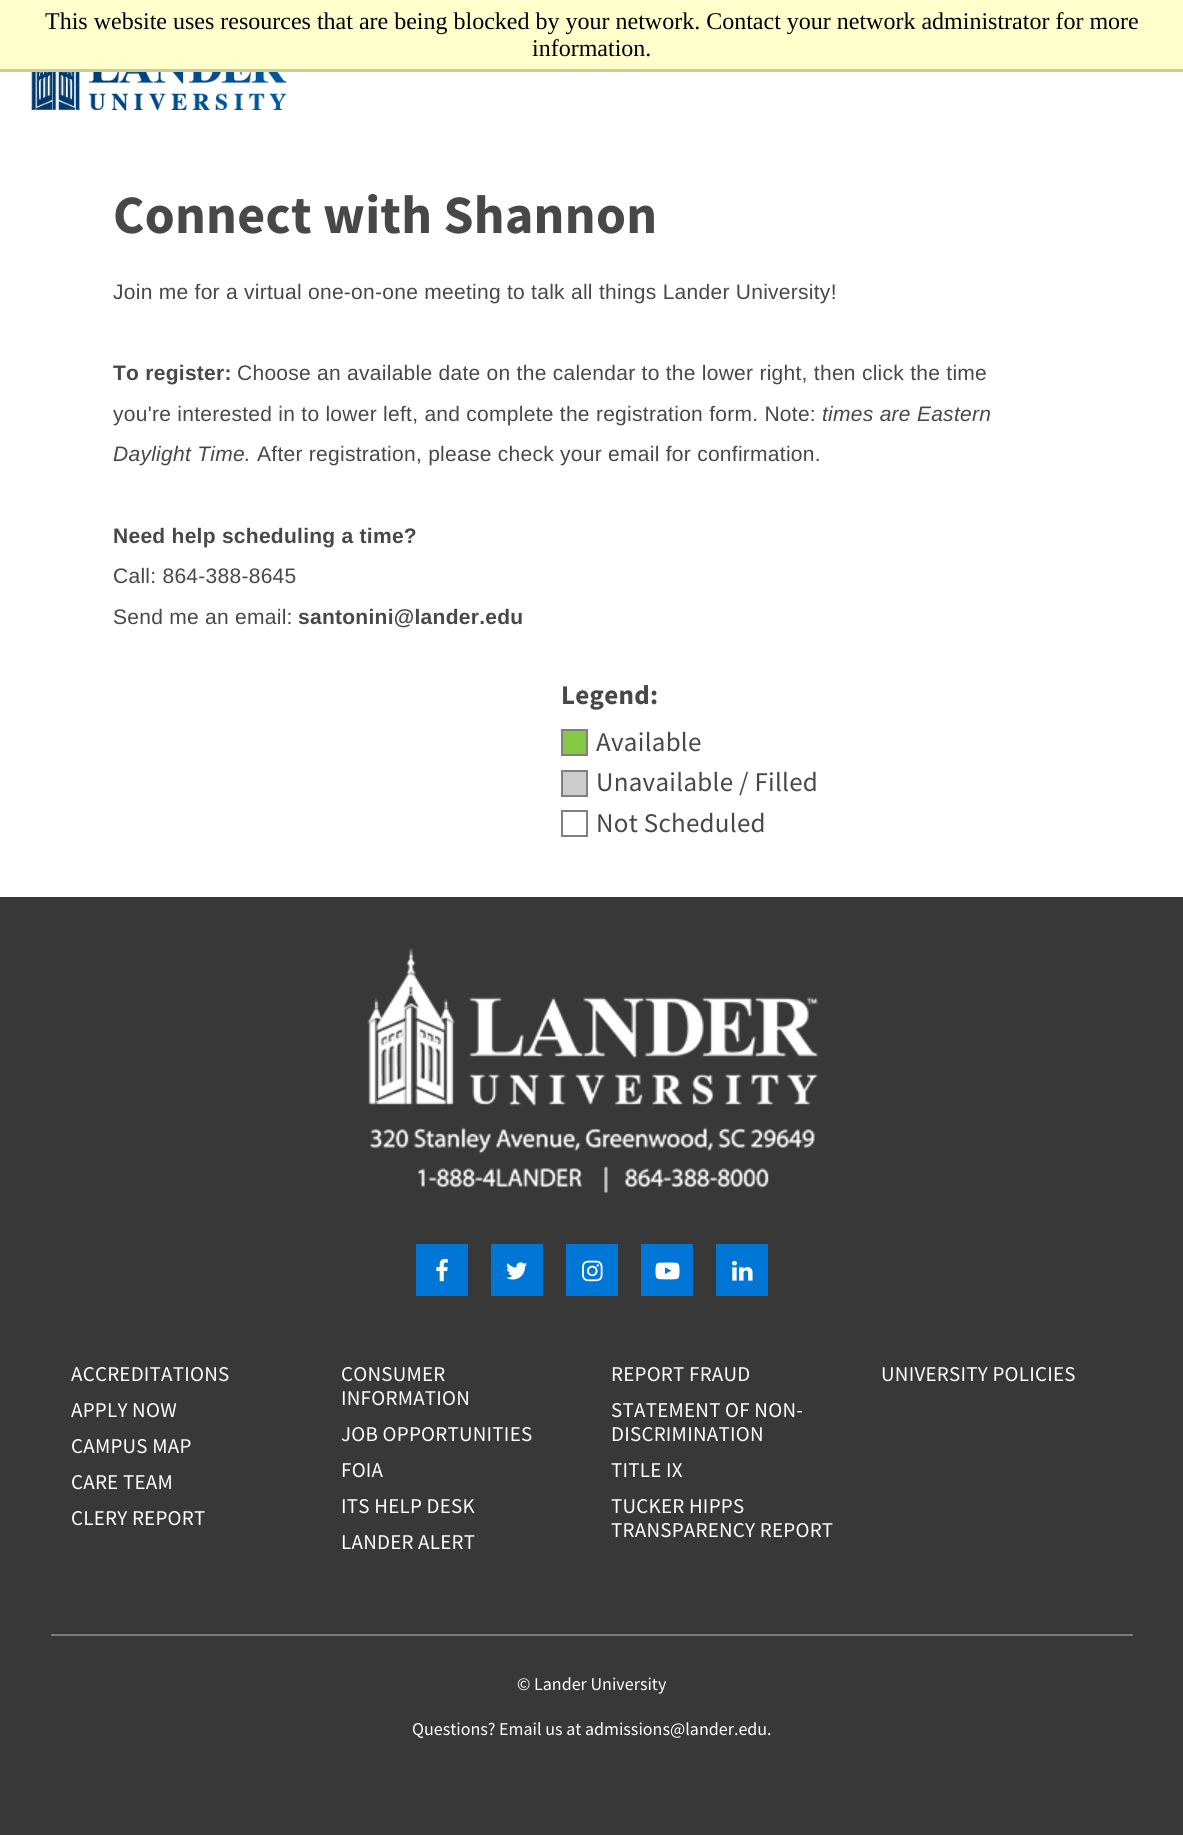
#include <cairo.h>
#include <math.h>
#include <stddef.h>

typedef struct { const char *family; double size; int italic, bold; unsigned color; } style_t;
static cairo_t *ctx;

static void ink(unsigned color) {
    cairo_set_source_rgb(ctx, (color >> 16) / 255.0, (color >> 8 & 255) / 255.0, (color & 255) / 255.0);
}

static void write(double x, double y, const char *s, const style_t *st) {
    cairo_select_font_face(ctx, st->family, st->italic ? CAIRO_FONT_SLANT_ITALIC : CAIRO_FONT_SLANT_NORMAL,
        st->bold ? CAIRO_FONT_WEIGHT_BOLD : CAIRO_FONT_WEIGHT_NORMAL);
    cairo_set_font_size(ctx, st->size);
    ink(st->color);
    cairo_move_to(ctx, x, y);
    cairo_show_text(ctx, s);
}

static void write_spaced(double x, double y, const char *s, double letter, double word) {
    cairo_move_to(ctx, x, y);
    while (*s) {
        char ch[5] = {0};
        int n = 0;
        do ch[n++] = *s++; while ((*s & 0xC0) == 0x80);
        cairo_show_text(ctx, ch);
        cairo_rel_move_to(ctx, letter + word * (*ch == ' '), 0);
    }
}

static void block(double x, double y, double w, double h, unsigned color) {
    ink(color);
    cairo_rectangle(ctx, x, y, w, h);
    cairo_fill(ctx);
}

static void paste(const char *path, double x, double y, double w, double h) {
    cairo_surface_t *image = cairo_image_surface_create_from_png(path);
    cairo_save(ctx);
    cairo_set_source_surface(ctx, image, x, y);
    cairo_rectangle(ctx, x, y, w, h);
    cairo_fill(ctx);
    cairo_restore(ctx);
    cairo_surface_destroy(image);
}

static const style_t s1 = {"Liberation Serif", 24, 0, 0, 0x000000};
static const style_t s2 = {"Source Sans Pro", 18, 0, 0, 0xffffff};

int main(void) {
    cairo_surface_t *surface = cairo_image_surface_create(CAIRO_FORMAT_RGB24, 1183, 1835);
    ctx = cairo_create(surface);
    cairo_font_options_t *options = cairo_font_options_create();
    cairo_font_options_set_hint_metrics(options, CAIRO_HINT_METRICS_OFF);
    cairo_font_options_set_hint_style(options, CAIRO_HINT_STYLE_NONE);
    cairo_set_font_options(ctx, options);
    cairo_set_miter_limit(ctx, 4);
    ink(0xffffff);
    cairo_paint(ctx);
    block(0, 0, 1183, 69, 0xffffcc);
    block(0, 69, 1183, 3, 0xcccc99);
    write(45, 29, "This website uses resources that are being blocked by your network. Contact your network administrator for more", &s1);
    write(532, 56, "information.", &s1);
    paste("pic1.png", 31, 72, 256, 39);
    cairo_select_font_face(ctx, "Source Sans Pro", CAIRO_FONT_SLANT_NORMAL, CAIRO_FONT_WEIGHT_BOLD);
    cairo_set_font_size(ctx, 54);
    ink(0x484848);
    write_spaced(113, 233, "Connect with Shannon", 0.27, 0);
    cairo_select_font_face(ctx, "Liberation Sans", CAIRO_FONT_SLANT_NORMAL, CAIRO_FONT_WEIGHT_NORMAL);
    cairo_set_font_size(ctx, 21);
    write_spaced(113, 299, "Join me for a virtual one-on-one meeting to talk all things Lander University!", 0.27, 0);
    cairo_select_font_face(ctx, "Liberation Sans", CAIRO_FONT_SLANT_NORMAL, CAIRO_FONT_WEIGHT_BOLD);
    write_spaced(113, 380, "To register:", 0.27, 0);
    cairo_select_font_face(ctx, "Liberation Sans", CAIRO_FONT_SLANT_NORMAL, CAIRO_FONT_WEIGHT_NORMAL);
    write_spaced(237, 380, "Choose an available date on the calendar to the lower right, then click the time", 0.27, 0);
    write_spaced(113, 421, "you're interested in to lower left, and complete the registration form. Note:", 0.27, 0);
    cairo_select_font_face(ctx, "Liberation Sans", CAIRO_FONT_SLANT_ITALIC, CAIRO_FONT_WEIGHT_NORMAL);
    write_spaced(822, 421, "times are Eastern", 0.27, 0);
    write_spaced(113, 461, "Daylight Time.", 0.27, 0);
    cairo_select_font_face(ctx, "Liberation Sans", CAIRO_FONT_SLANT_NORMAL, CAIRO_FONT_WEIGHT_NORMAL);
    write_spaced(257, 461, "After registration, please check your email for confirmation.", 0.27, 0);
    cairo_select_font_face(ctx, "Liberation Sans", CAIRO_FONT_SLANT_NORMAL, CAIRO_FONT_WEIGHT_BOLD);
    write_spaced(113, 543, "Need help scheduling a time?", 0.27, 0);
    cairo_select_font_face(ctx, "Liberation Sans", CAIRO_FONT_SLANT_NORMAL, CAIRO_FONT_WEIGHT_NORMAL);
    write_spaced(113, 583, "Call: 864-388-8645", 0.27, 0);
    write_spaced(113, 624, "Send me an email:", 0.27, 0);
    cairo_select_font_face(ctx, "Liberation Sans", CAIRO_FONT_SLANT_NORMAL, CAIRO_FONT_WEIGHT_BOLD);
    write_spaced(298, 624, "santonini@lander.edu", 0.27, 0);
    cairo_select_font_face(ctx, "Source Sans Pro", CAIRO_FONT_SLANT_NORMAL, CAIRO_FONT_WEIGHT_BOLD);
    cairo_set_font_size(ctx, 27);
    write_spaced(561, 704, "Legend:", 0.27, 0);
    ink(0x86c743);
    cairo_rectangle(ctx, 562, 730, 25, 25);
    cairo_fill_preserve(ctx);
    ink(0x808080);
    cairo_stroke(ctx);
    cairo_select_font_face(ctx, "Source Sans Pro", CAIRO_FONT_SLANT_NORMAL, CAIRO_FONT_WEIGHT_NORMAL);
    ink(0x484848);
    write_spaced(596, 751, "Available", 0.27, 0);
    ink(0xcccccc);
    cairo_rectangle(ctx, 562, 771, 25, 25);
    cairo_fill_preserve(ctx);
    ink(0x808080);
    cairo_stroke(ctx);
    ink(0x484848);
    write_spaced(596, 791, "Unavailable / Filled", 0.27, 0);
    cairo_rectangle(ctx, 562, 811, 25, 25);
    ink(0x808080);
    cairo_stroke(ctx);
    ink(0x484848);
    write_spaced(596, 832, "Not Scheduled", 0.27, 0);
    block(0, 897, 1183, 938, 0x383838);
    paste("pic2.png", 367, 948, 451, 245);
    block(416, 1244, 52, 52, 0x0076d6);
    paste("pic3.png", 436, 1258, 12, 24);
    block(491, 1244, 52, 52, 0x0076d6);
    paste("pic4.png", 506, 1262, 21, 18);
    block(566, 1244, 52, 52, 0x0076d6);
    paste("pic5.png", 582, 1260, 21, 22);
    block(641, 1244, 52, 52, 0x0076d6);
    paste("pic6.png", 655, 1262, 25, 18);
    block(716, 1244, 52, 52, 0x0076d6);
    paste("pic7.png", 732, 1260, 21, 21);
    cairo_set_font_size(ctx, 21);
    ink(0xffffff);
    write_spaced(71, 1381, "ACCREDITATIONS", 0.25, 0);
    write_spaced(341, 1381, "CONSUMER", 0.25, 0);
    write_spaced(341, 1405, "INFORMATION", 0.25, 0);
    write_spaced(611, 1381, "REPORT FRAUD", 0.25, 0);
    write_spaced(881, 1381, "UNIVERSITY POLICIES", 0.25, 0);
    write_spaced(71, 1417, "APPLY NOW", 0.25, 0);
    write_spaced(341, 1441, "JOB OPPORTUNITIES", 0.25, 0);
    write_spaced(611, 1417, "STATEMENT OF NON-", 0.25, 0);
    write_spaced(611, 1441, "DISCRIMINATION", 0.25, 0);
    write_spaced(71, 1453, "CAMPUS MAP", 0.25, 0);
    write_spaced(341, 1477, "FOIA", 0.25, 0);
    write_spaced(611, 1477, "TITLE IX", 0.25, 0);
    write_spaced(71, 1489, "CARE TEAM", 0.25, 0);
    write_spaced(71, 1525, "CLERY REPORT", 0.25, 0);
    write_spaced(341, 1513, "ITS HELP DESK", 0.25, 0);
    write_spaced(611, 1513, "TUCKER HIPPS", 0.25, 0);
    write_spaced(611, 1537, "TRANSPARENCY REPORT", 0.25, 0);
    write_spaced(341, 1549, "LANDER ALERT", 0.25, 0);
    block(51, 1634, 1082, 2, 0x7c7c7c);
    write(517, 1690, "© Lander University", &s2);
    write(412, 1735, "Questions? Email us at admissions@lander.edu.", &s2);
    cairo_surface_write_to_png(surface, "screenshot.png");
    cairo_font_options_destroy(options);
    cairo_destroy(ctx);
    cairo_surface_destroy(surface);
    return 0;
}
